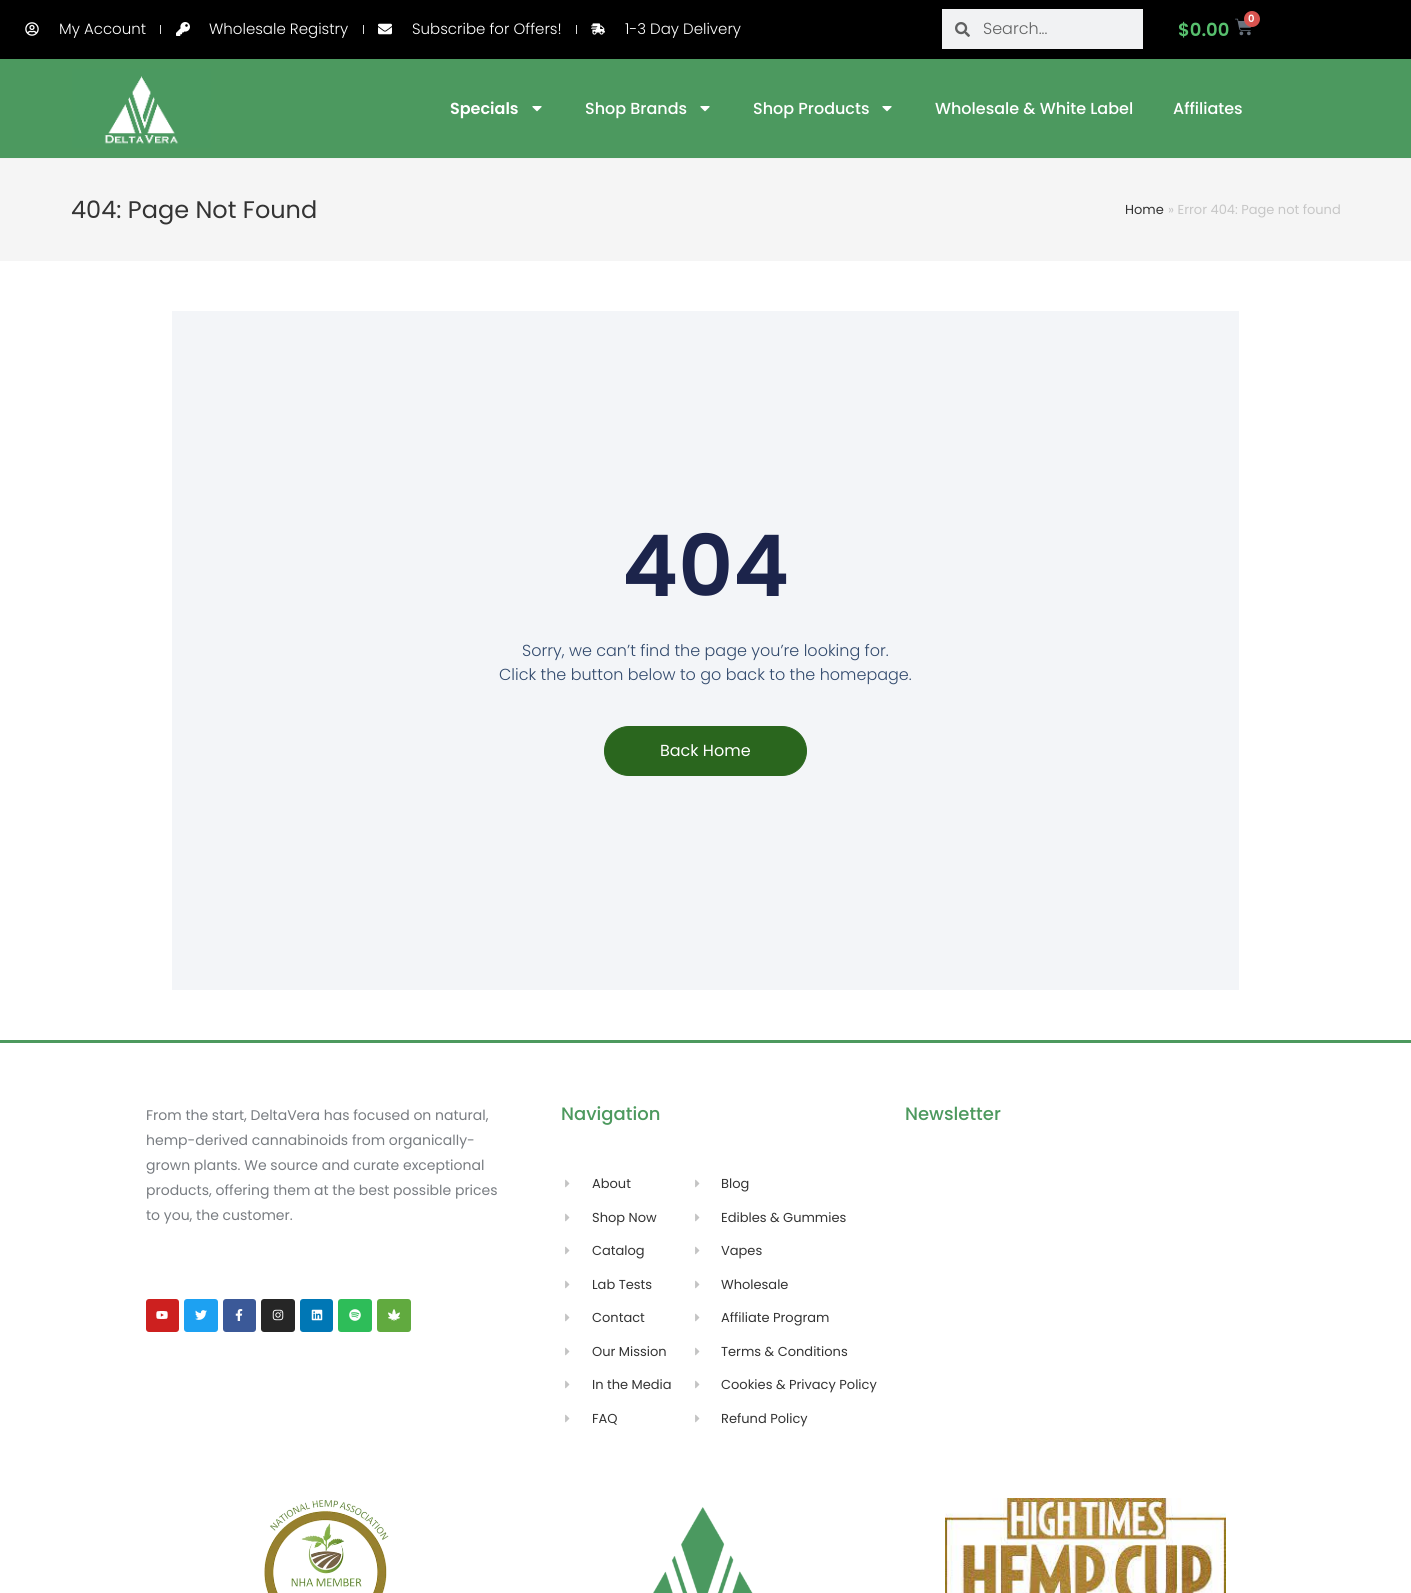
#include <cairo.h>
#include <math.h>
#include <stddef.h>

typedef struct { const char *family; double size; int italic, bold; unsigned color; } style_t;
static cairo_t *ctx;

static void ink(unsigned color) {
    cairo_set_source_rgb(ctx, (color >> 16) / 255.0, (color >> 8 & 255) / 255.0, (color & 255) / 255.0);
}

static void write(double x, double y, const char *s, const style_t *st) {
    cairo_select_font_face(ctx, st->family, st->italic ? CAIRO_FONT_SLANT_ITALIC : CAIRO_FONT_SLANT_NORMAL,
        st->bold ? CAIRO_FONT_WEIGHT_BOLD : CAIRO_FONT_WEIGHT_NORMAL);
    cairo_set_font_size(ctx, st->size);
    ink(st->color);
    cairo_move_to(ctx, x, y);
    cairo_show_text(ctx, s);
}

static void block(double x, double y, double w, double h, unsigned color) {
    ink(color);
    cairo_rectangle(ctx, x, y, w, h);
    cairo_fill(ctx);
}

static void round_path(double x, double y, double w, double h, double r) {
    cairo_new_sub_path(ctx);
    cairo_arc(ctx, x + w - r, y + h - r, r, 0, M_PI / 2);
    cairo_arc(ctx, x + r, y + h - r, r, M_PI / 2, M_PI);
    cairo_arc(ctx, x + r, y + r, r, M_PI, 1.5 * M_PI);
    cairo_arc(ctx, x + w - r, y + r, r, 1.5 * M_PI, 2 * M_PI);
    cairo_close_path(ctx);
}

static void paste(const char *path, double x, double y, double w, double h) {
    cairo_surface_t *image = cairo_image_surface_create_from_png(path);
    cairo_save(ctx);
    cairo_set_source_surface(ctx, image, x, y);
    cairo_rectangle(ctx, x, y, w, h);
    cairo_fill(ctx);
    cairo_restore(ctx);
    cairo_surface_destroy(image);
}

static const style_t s1 = {"Poppins Light", 15, 0, 0, 0xffffff};
static const style_t s2 = {"Poppins Light", 16, 0, 0, 0x606161};
static const style_t s3 = {"Poppins SemiBold", 10, 0, 0, 0xffffff};
static const style_t s4 = {"Poppins SemiBold", 18, 0, 0, 0x57bf6d};
static const style_t s5 = {"Poppins SemiBold", 16, 0, 0, 0xffffff};
static const style_t s6 = {"Poppins Medium", 16, 0, 0, 0xffffff};
static const style_t s7 = {"Poppins", 24, 0, 0, 0x333333};
static const style_t s8 = {"Poppins", 13, 0, 0, 0x333333};
static const style_t s9 = {"Poppins", 13, 0, 0, 0xc6c6c6};
static const style_t s10 = {"Poppins SemiBold", 85, 0, 0, 0x1c244b};
static const style_t s11 = {"Poppins Light", 16, 0, 0, 0x324a6d};
static const style_t s12 = {"Poppins", 16, 0, 0, 0xffffff};
static const style_t s13 = {"Poppins", 14, 0, 0, 0x787c81};
static const style_t s14 = {"Poppins Medium", 18, 0, 0, 0x4d995e};

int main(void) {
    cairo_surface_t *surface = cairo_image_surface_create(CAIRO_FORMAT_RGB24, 1411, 1593);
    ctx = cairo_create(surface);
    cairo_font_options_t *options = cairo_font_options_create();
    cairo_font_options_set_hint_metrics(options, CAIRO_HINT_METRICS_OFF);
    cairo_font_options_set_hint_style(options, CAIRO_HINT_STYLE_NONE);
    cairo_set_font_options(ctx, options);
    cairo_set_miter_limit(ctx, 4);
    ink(0xffffff);
    cairo_paint(ctx);
    block(0, 158, 1411, 1, 0xf1f1f1);
    block(0, 0, 1411, 59, 0x000000);
    paste("pic1.png", 25, 22, 14, 14);
    write(59, 34, "My Account", &s1);
    block(160, 25, 1, 9, 0xdddddd);
    paste("pic2.png", 176, 22, 14, 14);
    write(209, 34, "Wholesale Registry", &s1);
    block(363, 25, 1, 9, 0xdddddd);
    paste("pic3.png", 378, 23, 14, 12);
    write(412, 34, "Subscribe for Offers!", &s1);
    block(576, 25, 1, 9, 0xdddddd);
    paste("pic4.png", 591, 23, 14, 12);
    write(625, 34, "1-3 Day Delivery", &s1);
    block(942, 9, 201, 40, 0xf1f2f3);
    paste("pic5.png", 955, 22, 15, 15);
    write(983, 34, "Search...", &s2);
    paste("pic6.png", 1235, 18, 17, 18);
    ink(0xd9534f);
    cairo_arc(ctx, 1252, 19, 8, 0, 2 * M_PI);
    cairo_fill(ctx);
    write(1248, 22, "0", &s3);
    write(1178, 36, "$0.00", &s4);
    block(0, 59, 1411, 99, 0x4c995f);
    paste("pic7.png", 72, 69, 139, 79);
    write(450, 114, "Specials", &s5);
    paste("pic8.png", 532, 106, 10, 6);
    write(585, 114, "Shop Brands", &s6);
    paste("pic8.png", 700, 106, 10, 6);
    write(753, 114, "Shop Products", &s6);
    paste("pic8.png", 882, 106, 10, 6);
    write(935, 114, "Wholesale & White Label", &s6);
    write(1173, 114, "Affiliates", &s6);
    block(0, 159, 1411, 102, 0xf5f5f5);
    write(71, 218, "404: Page Not Found", &s7);
    write(1125, 214, "Home", &s8);
    write(1168, 214, "» Error 404: Page not found", &s9);
    block(172, 311, 1067, 679, 0xf3f5f8);
    write(622, 596, "404", &s10);
    write(522, 656, "Sorry, we can’t find the page you’re looking for.", &s11);
    write(499, 680, "Click the button below to go back to the homepage.", &s11);
    ink(0x2a661e);
    round_path(604.5, 726.5, 202, 49, 24.5);
    cairo_fill_preserve(ctx);
    cairo_set_line_width(ctx, 1);
    cairo_stroke(ctx);
    write(660, 756, "Back Home", &s12);
    block(0, 1040, 1411, 3, 0x4d995e);
    write(146, 1120, "From the start, DeltaVera has focused on natural,", &s13);
    write(146, 1145, "hemp-derived cannabinoids from organically-", &s13);
    write(146, 1170, "grown plants. We source and curate exceptional", &s13);
    write(146, 1195, "products, offering them at the best possible prices", &s13);
    write(146, 1220, "to you, the customer.", &s13);
    ink(0xcd201f);
    round_path(146, 1299, 33, 33, 3);
    cairo_fill(ctx);
    paste("pic9.png", 156, 1311, 12, 8);
    ink(0x1da1f2);
    round_path(184, 1299, 34, 33, 3);
    cairo_fill(ctx);
    paste("pic10.png", 195, 1310, 12, 10);
    ink(0x3b5998);
    round_path(223, 1299, 33, 33, 3);
    cairo_fill(ctx);
    paste("pic11.png", 235, 1309, 8, 12);
    ink(0x262626);
    round_path(261, 1299, 34, 33, 3);
    cairo_fill(ctx);
    paste("pic12.png", 272, 1309, 12, 12);
    ink(0x0077b5);
    round_path(300, 1299, 33, 33, 3);
    cairo_fill(ctx);
    paste("pic13.png", 311, 1309, 12, 12);
    ink(0x2ebd59);
    round_path(338, 1299, 34, 33, 3);
    cairo_fill(ctx);
    paste("pic14.png", 349, 1309, 12, 12);
    ink(0x61aa3f);
    round_path(377, 1299, 34, 33, 3);
    cairo_fill(ctx);
    paste("pic15.png", 388, 1309, 12, 12);
    write(561, 1120, "Navigation", &s14);
    paste("pic16.png", 565, 1179, 5, 9);
    write(592, 1188, "About", &s8);
    paste("pic16.png", 565, 1213, 5, 9);
    write(592, 1222, "Shop Now", &s8);
    paste("pic16.png", 565, 1246, 5, 9);
    write(592, 1255, "Catalog", &s8);
    paste("pic16.png", 565, 1280, 5, 9);
    write(592, 1289, "Lab Tests", &s8);
    paste("pic16.png", 565, 1313, 5, 9);
    write(592, 1322, "Contact", &s8);
    paste("pic16.png", 565, 1347, 5, 9);
    write(592, 1356, "Our Mission", &s8);
    paste("pic16.png", 565, 1380, 5, 9);
    write(592, 1389, "In the Media", &s8);
    paste("pic16.png", 565, 1414, 5, 9);
    write(592, 1423, "FAQ", &s8);
    paste("pic16.png", 695, 1179, 5, 9);
    write(721, 1188, "Blog", &s8);
    paste("pic16.png", 695, 1213, 5, 9);
    write(721, 1222, "Edibles & Gummies", &s8);
    paste("pic16.png", 695, 1246, 5, 9);
    write(721, 1255, "Vapes", &s8);
    paste("pic16.png", 695, 1280, 5, 9);
    write(721, 1289, "Wholesale", &s8);
    paste("pic16.png", 695, 1313, 5, 9);
    write(721, 1322, "Affiliate Program", &s8);
    paste("pic16.png", 695, 1347, 5, 9);
    write(721, 1356, "Terms & Conditions", &s8);
    paste("pic16.png", 695, 1380, 5, 9);
    write(721, 1389, "Cookies & Privacy Policy", &s8);
    paste("pic16.png", 695, 1414, 5, 9);
    write(721, 1423, "Refund Policy", &s8);
    write(905, 1120, "Newsletter", &s14);
    paste("pic17.png", 264, 1500, 125, 93);
    paste("pic18.png", 653, 1507, 100, 86);
    paste("pic19.png", 945, 1498, 281, 95);
    cairo_surface_write_to_png(surface, "screenshot.png");
    cairo_font_options_destroy(options);
    cairo_destroy(ctx);
    cairo_surface_destroy(surface);
    return 0;
}
